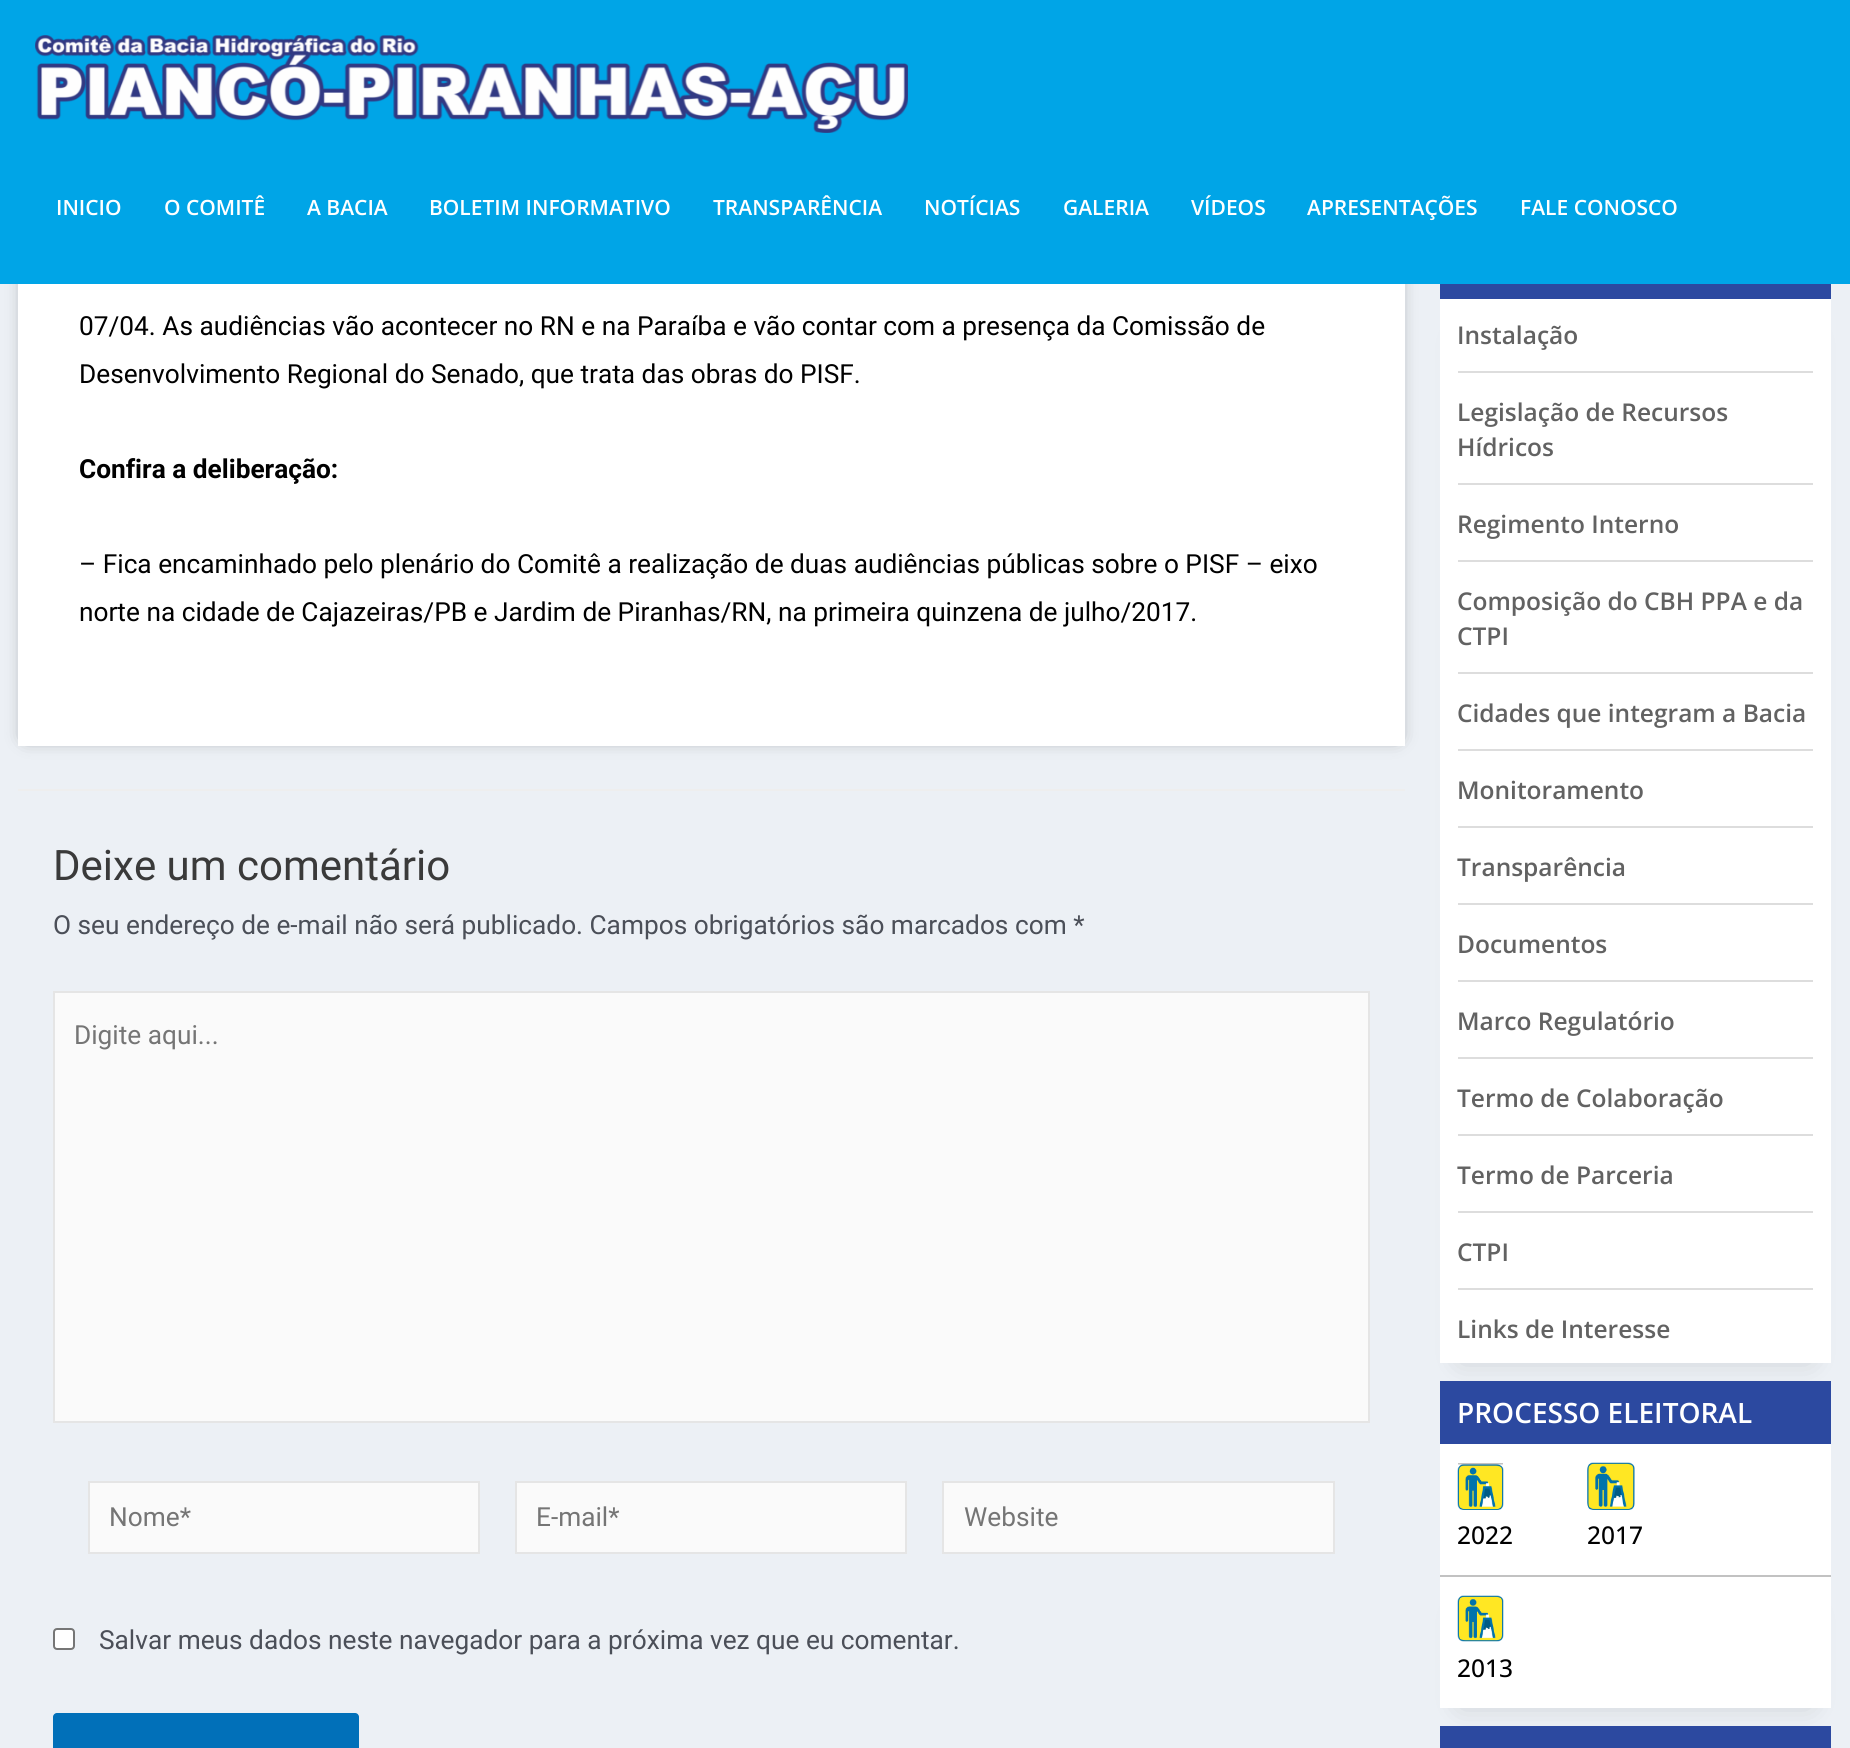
#include <cairo.h>
#include <math.h>
#include <stddef.h>

typedef struct { const char *family; double size; int italic, bold; unsigned color; } style_t;
static cairo_t *ctx;

static void ink(unsigned color) {
    cairo_set_source_rgb(ctx, (color >> 16) / 255.0, (color >> 8 & 255) / 255.0, (color & 255) / 255.0);
}

static void write(double x, double y, const char *s, const style_t *st) {
    cairo_select_font_face(ctx, st->family, st->italic ? CAIRO_FONT_SLANT_ITALIC : CAIRO_FONT_SLANT_NORMAL,
        st->bold ? CAIRO_FONT_WEIGHT_BOLD : CAIRO_FONT_WEIGHT_NORMAL);
    cairo_set_font_size(ctx, st->size);
    ink(st->color);
    cairo_move_to(ctx, x, y);
    cairo_show_text(ctx, s);
}

static void block(double x, double y, double w, double h, unsigned color) {
    ink(color);
    cairo_rectangle(ctx, x, y, w, h);
    cairo_fill(ctx);
}

static void round_path(double x, double y, double w, double h, double r) {
    cairo_new_sub_path(ctx);
    cairo_arc(ctx, x + w - r, y + h - r, r, 0, M_PI / 2);
    cairo_arc(ctx, x + r, y + h - r, r, M_PI / 2, M_PI);
    cairo_arc(ctx, x + r, y + r, r, M_PI, 1.5 * M_PI);
    cairo_arc(ctx, x + w - r, y + r, r, 1.5 * M_PI, 2 * M_PI);
    cairo_close_path(ctx);
}

static void blur_box(double x, double y, double w, double h, double r, double blur, double alpha) {
    cairo_push_group_with_content(ctx, CAIRO_CONTENT_ALPHA);
    cairo_set_operator(ctx, CAIRO_OPERATOR_SOURCE);
    for (int i = 15; i >= -15 && fmin(w, h) + blur * i / 3 > 0; i -= 2) {
        double e = blur * i / 6;
        cairo_set_source_rgba(ctx, 0, 0, 0, alpha * erfc((i - 1) / 8.5) / 2);
        round_path(x - e, y - e, w + 2 * e, h + 2 * e, fmax(0, fmin(r + e + blur * .6, fmin(w, h) / 2 + e)));
        cairo_fill(ctx);
    }
    cairo_pattern_t *soft = cairo_pop_group(ctx);
    cairo_mask(ctx, soft);
    cairo_pattern_destroy(soft);
}

static void paste(const char *path, double x, double y, double w, double h) {
    cairo_surface_t *image = cairo_image_surface_create_from_png(path);
    cairo_save(ctx);
    cairo_set_source_surface(ctx, image, x, y);
    cairo_rectangle(ctx, x, y, w, h);
    cairo_fill(ctx);
    cairo_restore(ctx);
    cairo_surface_destroy(image);
}

static const style_t s1 = {"Open Sans SemiBold", 21, 0, 0, 0xffffff};
static const style_t s2 = {"Roboto", 26.25, 0, 0, 0x000000};
static const style_t s3 = {"Roboto", 26.25, 0, 1, 0x000000};
static const style_t s4 = {"Roboto", 42, 0, 0, 0x3a3a3a};
static const style_t s5 = {"Roboto", 26.25, 0, 0, 0x4b4f58};
static const style_t s6 = {"Roboto", 26.25, 0, 0, 0x757575};
static const style_t s7 = {"Open Sans SemiBold", 24.5, 0, 0, 0x626262};
static const style_t s8 = {"Open Sans SemiBold", 28, 0, 0, 0xffffff};
static const style_t s9 = {"Open Sans Medium", 24.5, 0, 0, 0x000000};

int main(void) {
    cairo_surface_t *surface = cairo_image_surface_create(CAIRO_FORMAT_RGB24, 1850, 1748);
    ctx = cairo_create(surface);
    cairo_font_options_t *options = cairo_font_options_create();
    cairo_font_options_set_hint_metrics(options, CAIRO_HINT_METRICS_OFF);
    cairo_font_options_set_hint_style(options, CAIRO_HINT_STYLE_NONE);
    cairo_set_font_options(ctx, options);
    cairo_set_miter_limit(ctx, 4);
    ink(0xecf0f5);
    cairo_paint(ctx);
    ink(0x000000);
    blur_box(26, -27, 1371, 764, 0, 9, 0.5);
    ink(0xffffff);
    cairo_new_path(ctx);
    cairo_move_to(ctx, 21, -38);
    cairo_line_to(ctx, 1405, -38);
    cairo_line_to(ctx, 1405, 746);
    cairo_line_to(ctx, 18, 746);
    cairo_line_to(ctx, 18, -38);
    cairo_close_path(ctx);
    cairo_fill(ctx);
    block(0, 0, 1850, 284, 0x00a5e7);
    paste("pic1.png", 35, 35, 873, 98);
    write(56, 215, "INICIO", &s1);
    write(164, 215, "O COMITÊ", &s1);
    write(307, 215, "A BACIA", &s1);
    write(429, 215, "BOLETIM INFORMATIVO", &s1);
    write(713, 215, "TRANSPARÊNCIA", &s1);
    write(924, 215, "NOTÍCIAS", &s1);
    write(1063, 215, "GALERIA", &s1);
    write(1191, 215, "VÍDEOS", &s1);
    write(1307, 215, "APRESENTAÇÕES", &s1);
    write(1520, 215, "FALE CONOSCO", &s1);
    write(79, 335, "07/04. As audiências vão acontecer no RN e na Paraíba e vão contar com a presença da Comissão de", &s2);
    write(79, 383, "Desenvolvimento Regional do Senado, que trata das obras do PISF.", &s2);
    write(79, 478, "Confira a deliberação:", &s3);
    write(79, 573, "– Fica encaminhado pelo plenário do Comitê a realização de duas audiências públicas sobre o PISF – eixo", &s2);
    write(79, 621, "norte na cidade de Cajazeiras/PB e Jardim de Piranhas/RN, na primeira quinzena de julho/2017.", &s2);
    block(18, 789, 1387, 2, 0xeeeeee);
    write(53, 880, "Deixe um comentário", &s4);
    write(53, 934, "O seu endereço de e-mail não será publicado. Campos obrigatórios são marcados com *", &s5);
    ink(0xfafafa);
    cairo_rectangle(ctx, 54, 992, 1315, 430);
    cairo_fill_preserve(ctx);
    ink(0xe5e5e5);
    cairo_stroke(ctx);
    write(74, 1044, "Digite aqui...", &s6);
    ink(0xfafafa);
    cairo_rectangle(ctx, 89, 1482, 390, 71);
    cairo_fill_preserve(ctx);
    ink(0xe5e5e5);
    cairo_stroke(ctx);
    write(109, 1526, "Nome*", &s6);
    ink(0xfafafa);
    cairo_rectangle(ctx, 516, 1482, 390, 71);
    cairo_fill_preserve(ctx);
    ink(0xe5e5e5);
    cairo_stroke(ctx);
    write(536, 1526, "E-mail*", &s6);
    ink(0xfafafa);
    cairo_rectangle(ctx, 943, 1482, 391, 71);
    cairo_fill_preserve(ctx);
    ink(0xe5e5e5);
    cairo_stroke(ctx);
    write(964, 1526, "Website", &s6);
    ink(0xffffff);
    round_path(54, 1629, 20, 20, 3);
    cairo_fill_preserve(ctx);
    ink(0x767676);
    cairo_stroke(ctx);
    write(99, 1649, "Salvar meus dados neste navegador para a próxima vez que eu comentar.", &s5);
    ink(0x0170b9);
    round_path(53, 1713, 306, 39, 4);
    cairo_fill(ctx);
    block(1440, 284, 391, 15, 0x2c49a0);
    ink(0x000000);
    blur_box(1461, 338, 349, 1022, 0, 14, 0.15);
    block(1440, 299, 391, 1064, 0xffffff);
    write(1457, 344, "Instalação", &s7);
    block(1458, 371, 355, 2, 0xdddddd);
    write(1457, 421, "Legislação de Recursos", &s7);
    write(1457, 456, "Hídricos", &s7);
    block(1458, 483, 355, 2, 0xdddddd);
    write(1457, 533, "Regimento Interno", &s7);
    block(1458, 560, 355, 2, 0xdddddd);
    write(1457, 610, "Composição do CBH PPA e da", &s7);
    write(1457, 645, "CTPI", &s7);
    block(1458, 672, 355, 2, 0xdddddd);
    write(1457, 722, "Cidades que integram a Bacia", &s7);
    block(1458, 749, 355, 2, 0xdddddd);
    write(1457, 799, "Monitoramento", &s7);
    block(1458, 826, 355, 2, 0xdddddd);
    write(1457, 876, "Transparência", &s7);
    block(1458, 903, 355, 2, 0xdddddd);
    write(1457, 953, "Documentos", &s7);
    block(1458, 980, 355, 2, 0xdddddd);
    write(1457, 1030, "Marco Regulatório", &s7);
    block(1458, 1057, 355, 2, 0xdddddd);
    write(1457, 1107, "Termo de Colaboração", &s7);
    block(1458, 1134, 355, 2, 0xdddddd);
    write(1457, 1184, "Termo de Parceria", &s7);
    block(1458, 1211, 355, 2, 0xdddddd);
    write(1457, 1261, "CTPI", &s7);
    block(1458, 1288, 355, 2, 0xdddddd);
    write(1457, 1338, "Links de Interesse", &s7);
    block(1440, 1381, 391, 63, 0x2c49a0);
    write(1457, 1423, "PROCESSO ELEITORAL", &s8);
    block(1440, 1444, 391, 131, 0xffffff);
    block(1458, 1463, 45, 2, 0xc2c2c2);
    paste("pic2.png", 1457, 1464, 47, 46);
    write(1457, 1544, "2022", &s9);
    paste("pic3.png", 1587, 1462, 48, 48);
    write(1587, 1544, "2017", &s9);
    ink(0x000000);
    blur_box(1461, 1614, 349, 91, 0, 14, 0.15);
    block(1440, 1577, 391, 131, 0xffffff);
    block(1440, 1575, 391, 2, 0xc2c2c2);
    paste("pic4.png", 1457, 1595, 47, 47);
    write(1457, 1677, "2013", &s9);
    block(1440, 1726, 391, 22, 0x2c49a0);
    cairo_surface_write_to_png(surface, "screenshot.png");
    cairo_font_options_destroy(options);
    cairo_destroy(ctx);
    cairo_surface_destroy(surface);
    return 0;
}
